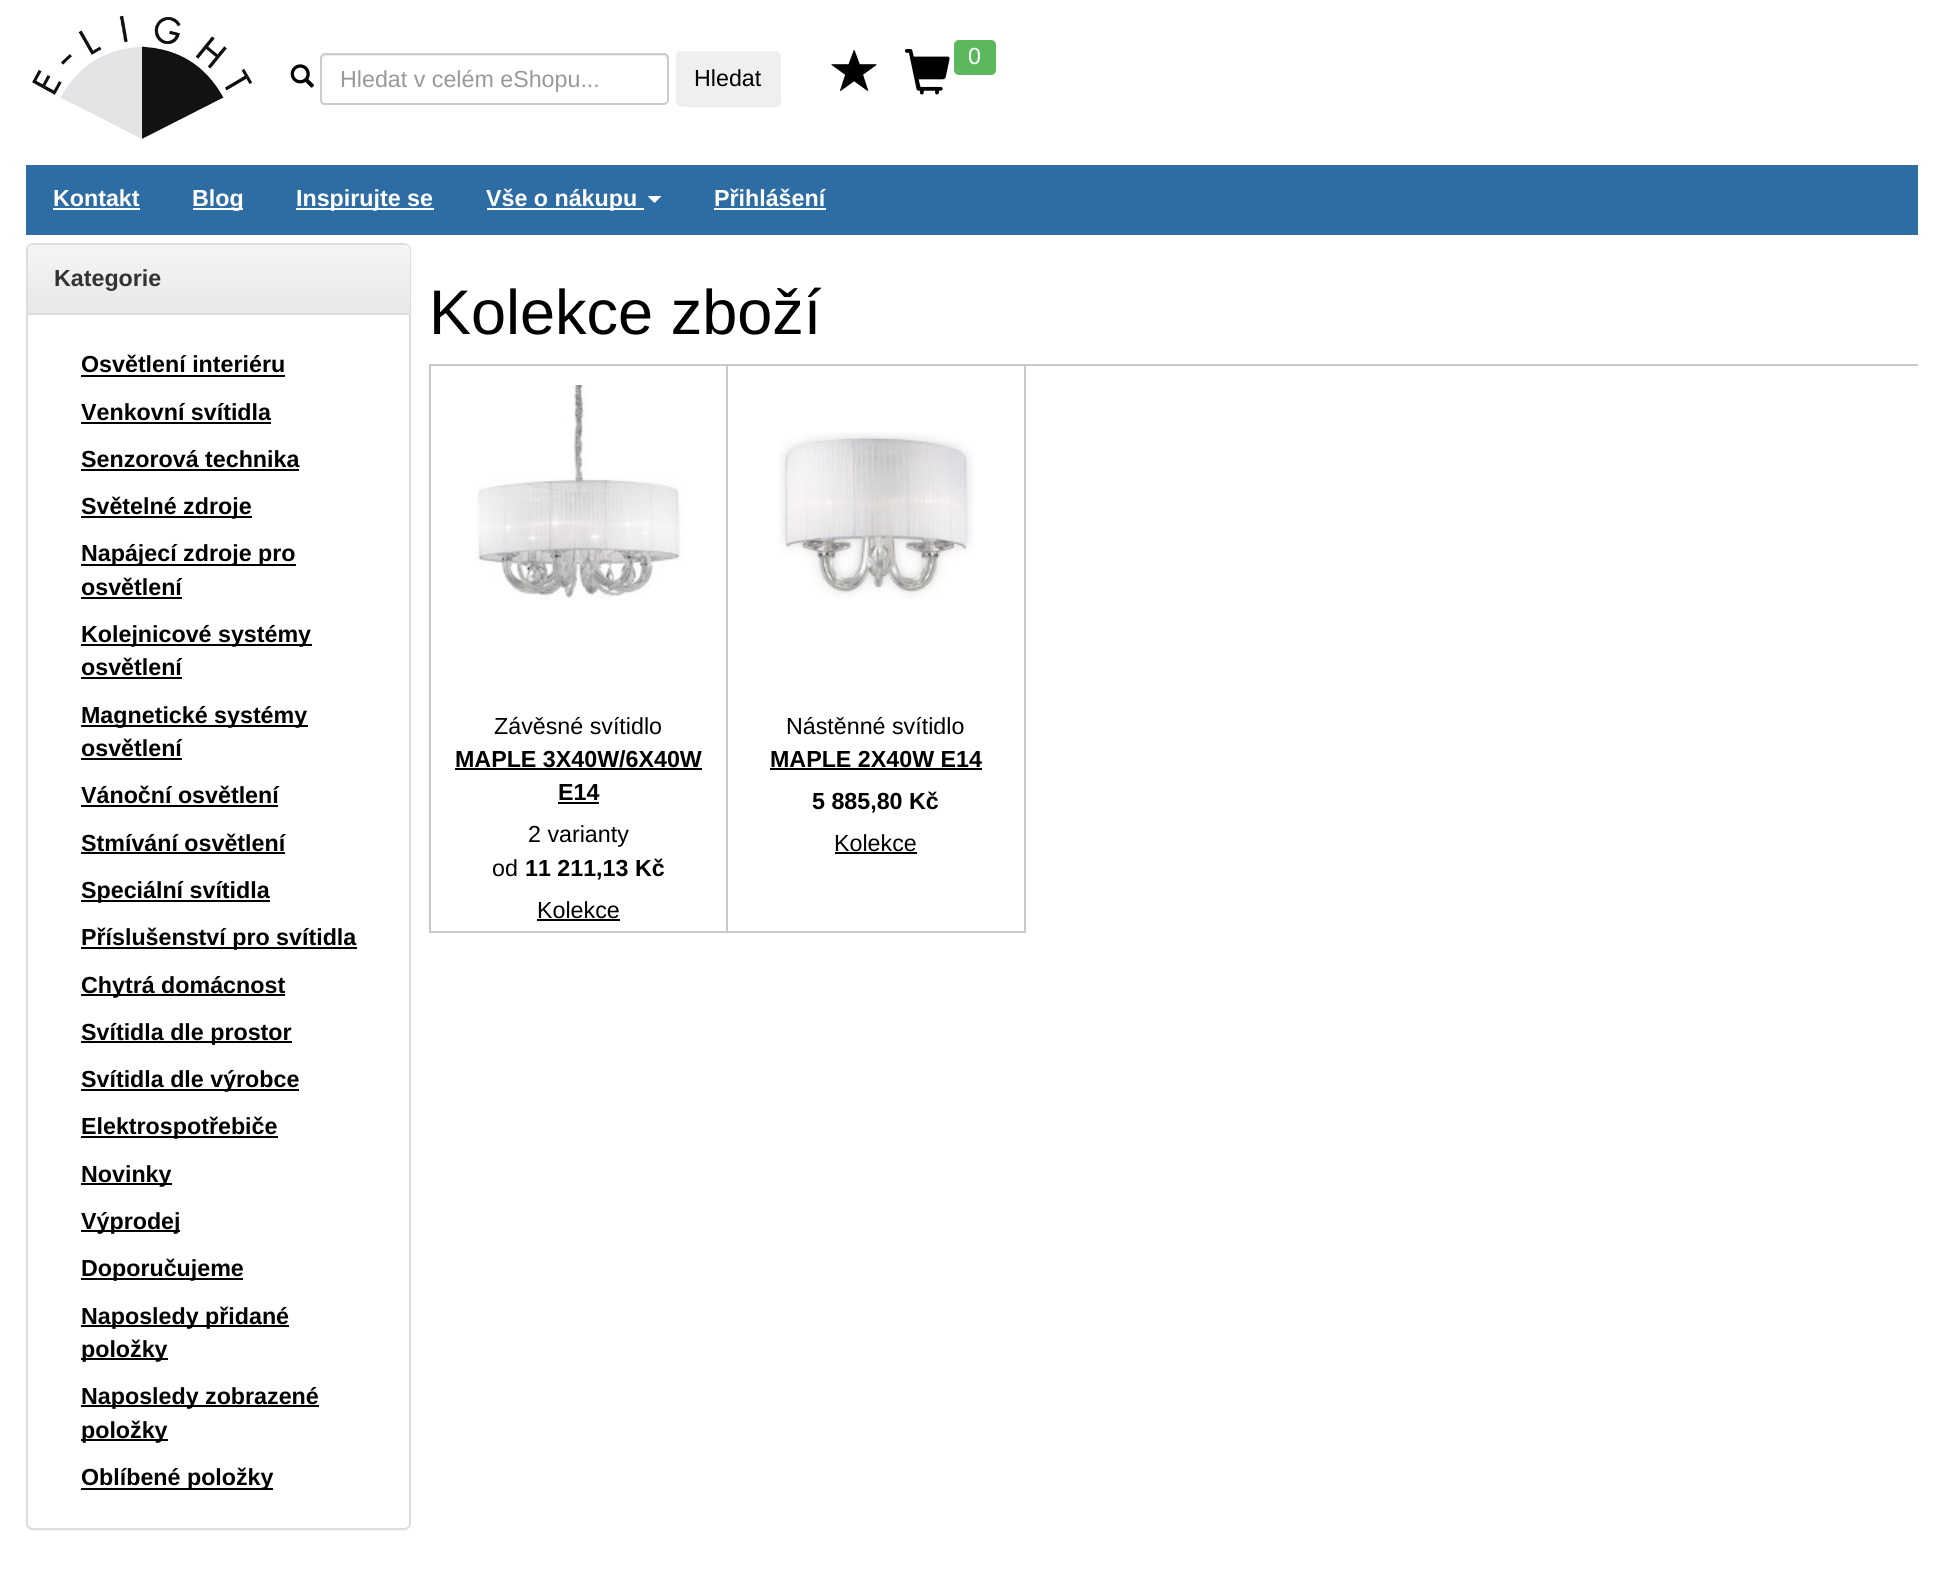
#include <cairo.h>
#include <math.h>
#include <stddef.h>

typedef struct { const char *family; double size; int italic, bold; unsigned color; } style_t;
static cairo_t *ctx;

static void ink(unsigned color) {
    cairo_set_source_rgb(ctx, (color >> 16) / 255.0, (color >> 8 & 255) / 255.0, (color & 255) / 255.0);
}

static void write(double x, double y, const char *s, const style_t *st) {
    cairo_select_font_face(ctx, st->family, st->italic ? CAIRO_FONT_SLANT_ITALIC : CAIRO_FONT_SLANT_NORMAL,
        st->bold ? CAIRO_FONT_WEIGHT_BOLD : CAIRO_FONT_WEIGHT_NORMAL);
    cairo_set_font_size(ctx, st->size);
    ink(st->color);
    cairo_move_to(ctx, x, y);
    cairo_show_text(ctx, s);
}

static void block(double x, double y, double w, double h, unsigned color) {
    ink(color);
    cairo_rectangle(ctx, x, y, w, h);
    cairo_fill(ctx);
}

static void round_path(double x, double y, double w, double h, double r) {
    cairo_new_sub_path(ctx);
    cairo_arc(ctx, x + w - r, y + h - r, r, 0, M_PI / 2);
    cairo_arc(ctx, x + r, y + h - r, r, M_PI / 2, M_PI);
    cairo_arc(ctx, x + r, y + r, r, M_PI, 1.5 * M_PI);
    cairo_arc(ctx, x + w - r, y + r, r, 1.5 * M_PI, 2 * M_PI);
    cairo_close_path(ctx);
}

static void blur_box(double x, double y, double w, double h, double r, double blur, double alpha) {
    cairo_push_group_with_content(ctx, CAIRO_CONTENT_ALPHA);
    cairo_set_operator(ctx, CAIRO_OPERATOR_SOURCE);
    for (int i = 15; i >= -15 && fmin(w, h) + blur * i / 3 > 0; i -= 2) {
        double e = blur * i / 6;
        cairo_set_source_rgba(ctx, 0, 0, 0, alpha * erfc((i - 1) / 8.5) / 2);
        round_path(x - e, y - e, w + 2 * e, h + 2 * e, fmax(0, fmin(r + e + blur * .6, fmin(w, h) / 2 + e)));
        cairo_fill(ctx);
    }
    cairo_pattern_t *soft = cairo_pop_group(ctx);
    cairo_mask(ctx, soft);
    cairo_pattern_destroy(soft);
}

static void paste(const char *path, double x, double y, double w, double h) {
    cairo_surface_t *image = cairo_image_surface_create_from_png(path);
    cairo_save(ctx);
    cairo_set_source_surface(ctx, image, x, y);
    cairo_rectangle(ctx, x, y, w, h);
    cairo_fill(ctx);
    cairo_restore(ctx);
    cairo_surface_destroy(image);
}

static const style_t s1 = {"Liberation Sans", 23.25, 0, 0, 0x999999};
static const style_t s2 = {"Liberation Sans", 23.25, 0, 0, 0x000000};
static const style_t s3 = {"Liberation Sans", 23.25, 0, 0, 0xffffff};
static const style_t s4 = {"Liberation Sans", 23.25, 0, 1, 0xffffff};
static const style_t s5 = {"Liberation Sans", 23.25, 0, 1, 0x333333};
static const style_t s6 = {"Liberation Sans", 23.25, 0, 1, 0x000000};
static const style_t s7 = {"Liberation Sans", 63, 0, 0, 0x000000};

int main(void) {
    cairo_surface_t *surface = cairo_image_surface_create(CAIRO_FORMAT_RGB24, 1944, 1586);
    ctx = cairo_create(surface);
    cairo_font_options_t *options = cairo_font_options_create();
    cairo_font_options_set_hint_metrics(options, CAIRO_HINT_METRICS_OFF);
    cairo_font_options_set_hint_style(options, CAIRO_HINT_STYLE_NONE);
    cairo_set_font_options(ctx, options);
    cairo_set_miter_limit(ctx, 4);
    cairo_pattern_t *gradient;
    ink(0xffffff);
    cairo_paint(ctx);
    paste("pic1.png", 32, 15, 220, 124);
    paste("pic2.png", 290, 64, 24, 24);
    ink(0xececec);
    cairo_new_path(ctx);
    cairo_move_to(ctx, 326, 56);
    cairo_line_to(ctx, 663, 56);
    cairo_curve_to(ctx, 665, 56, 667, 58, 667, 60);
    cairo_curve_to(ctx, 667, 57, 667, 54, 663, 54);
    cairo_line_to(ctx, 324, 54);
    cairo_curve_to(ctx, 322, 55, 322, 58, 322, 60);
    cairo_curve_to(ctx, 322, 58, 324, 56, 326, 56);
    cairo_close_path(ctx);
    cairo_fill(ctx);
    round_path(321, 54, 347, 50, 4);
    ink(0xcccccc);
    cairo_stroke(ctx);
    write(340, 87, "Hledat v celém eShopu...", &s1);
    ink(0xefefef);
    round_path(676, 51, 105, 56, 5);
    cairo_fill(ctx);
    write(694, 86, "Hledat", &s2);
    paste("pic3.png", 831, 50, 46, 41);
    paste("pic4.png", 905, 49, 45, 46);
    ink(0x5cb85c);
    round_path(954, 40, 42, 35, 5);
    cairo_fill(ctx);
    write(968, 64, "0", &s3);
    block(26, 165, 1892, 70, 0x2e6da4);
    write(53, 206, "Kontakt", &s4);
    block(53, 208, 87, 2, 0xffffff);
    block(193, 208, 50, 2, 0xffffff);
    write(192, 206, "Blog", &s4);
    block(296, 208, 138, 2, 0xffffff);
    write(296, 206, "Inspirujte se", &s4);
    block(487, 208, 157, 2, 0xffffff);
    write(486, 206, "Vše o nákupu", &s4);
    cairo_new_path(ctx);
    cairo_move_to(ctx, 647.5, 196);
    cairo_line_to(ctx, 661.5, 196);
    cairo_line_to(ctx, 654.5, 203);
    cairo_close_path(ctx);
    cairo_fill(ctx);
    write(714, 206, "Přihlášení", &s4);
    block(714, 208, 112, 2, 0xffffff);
    ink(0x000000);
    blur_box(26, 245, 385, 1286, 7, 1, 0.05);
    ink(0xffffff);
    round_path(27, 244, 383, 1285, 6);
    cairo_fill_preserve(ctx);
    ink(0xdddddd);
    cairo_stroke(ctx);
    gradient = cairo_pattern_create_linear(219, 245, 219, 313);
    cairo_pattern_add_color_stop_rgba(gradient, 0, 0.961, 0.961, 0.961, 1);
    cairo_pattern_add_color_stop_rgba(gradient, 1, 0.91, 0.91, 0.91, 1);
    cairo_set_source(ctx, gradient);
    cairo_pattern_destroy(gradient);
    cairo_new_path(ctx);
    cairo_move_to(ctx, 33, 245);
    cairo_line_to(ctx, 405, 245);
    cairo_curve_to(ctx, 408, 245, 410, 247, 410, 250);
    cairo_line_to(ctx, 410, 313);
    cairo_line_to(ctx, 28, 313);
    cairo_line_to(ctx, 28, 250);
    cairo_curve_to(ctx, 28, 247, 30, 245, 33, 245);
    cairo_close_path(ctx);
    cairo_fill(ctx);
    block(28, 313, 382, 2, 0xdddddd);
    write(54, 286, "Kategorie", &s5);
    write(81, 372, "Osvětlení interiéru", &s6);
    block(81, 375, 204, 2, 0x000000);
    write(81, 420, "Venkovní svítidla", &s6);
    block(81, 422, 190, 2, 0x000000);
    write(81, 467, "Senzorová technika", &s6);
    block(81, 469, 218, 2, 0x000000);
    block(81, 516, 171, 2, 0x000000);
    write(81, 514, "Světelné zdroje", &s6);
    block(81, 564, 215, 2, 0x000000);
    write(81, 561, "Napájecí zdroje pro", &s6);
    write(81, 595, "osvětlení", &s6);
    block(81, 597, 101, 2, 0x000000);
    block(81, 644, 231, 2, 0x000000);
    write(81, 642, "Kolejnicové systémy", &s6);
    write(81, 675, "osvětlení", &s6);
    block(81, 677, 101, 2, 0x000000);
    block(81, 725, 227, 2, 0x000000);
    write(81, 723, "Magnetické systémy", &s6);
    write(81, 756, "osvětlení", &s6);
    block(81, 758, 101, 2, 0x000000);
    write(81, 803, "Vánoční osvětlení", &s6);
    block(81, 805, 197, 2, 0x000000);
    write(81, 851, "Stmívání osvětlení", &s6);
    block(81, 852, 204, 2, 0x000000);
    block(81, 900, 189, 2, 0x000000);
    write(81, 898, "Speciální svítidla", &s6);
    block(81, 947, 276, 2, 0x000000);
    write(81, 945, "Příslušenství pro svítidla", &s6);
    block(81, 994, 204, 2, 0x000000);
    write(81, 993, "Chytrá domácnost", &s6);
    block(81, 1041, 211, 2, 0x000000);
    write(81, 1040, "Svítidla dle prostor", &s6);
    block(81, 1089, 218, 2, 0x000000);
    write(81, 1087, "Svítidla dle výrobce", &s6);
    block(81, 1136, 197, 2, 0x000000);
    write(81, 1134, "Elektrospotřebiče", &s6);
    block(81, 1183, 91, 2, 0x000000);
    write(81, 1182, "Novinky", &s6);
    block(81, 1230, 99, 2, 0x000000);
    write(81, 1229, "Výprodej", &s6);
    block(81, 1278, 162, 2, 0x000000);
    write(81, 1276, "Doporučujeme", &s6);
    block(81, 1325, 208, 2, 0x000000);
    write(81, 1324, "Naposledy přidané", &s6);
    block(81, 1358, 87, 2, 0x000000);
    write(81, 1357, "položky", &s6);
    block(81, 1405, 238, 2, 0x000000);
    write(81, 1404, "Naposledy zobrazené", &s6);
    block(81, 1439, 87, 2, 0x000000);
    write(81, 1438, "položky", &s6);
    block(81, 1488, 192, 2, 0x000000);
    write(81, 1485, "Oblíbené položky", &s6);
    write(429, 334, "Kolekce zboží", &s7);
    block(429, 364, 1489, 2, 0xc8c8c8);
    block(429, 364, 2, 569, 0xc8c8c8);
    block(726, 366, 2, 567, 0xc8c8c8);
    block(431, 931, 297, 2, 0xc8c8c8);
    paste("pic5.png", 474, 385, 211, 215);
    write(494, 734, "Závěsné svítidlo", &s2);
    write(455, 767, "MAPLE 3X40W/6X40W", &s6);
    block(455, 768, 247, 2, 0x000000);
    write(558, 800, "E14", &s6);
    block(558, 802, 41, 2, 0x000000);
    write(528, 842, "2 varianty", &s2);
    write(492, 876, "od", &s2);
    write(525, 876, "11 211,13 Kč", &s6);
    write(537, 918, "Kolekce", &s2);
    block(537, 919, 83, 2, 0x000000);
    block(1024, 366, 2, 567, 0xc8c8c8);
    block(728, 931, 298, 2, 0xc8c8c8);
    paste("pic6.png", 779, 432, 195, 167);
    write(786, 734, "Nástěnné svítidlo", &s2);
    write(770, 767, "MAPLE 2X40W E14", &s6);
    block(770, 768, 212, 2, 0x000000);
    write(812, 809, "5 885,80 Kč", &s6);
    write(834, 851, "Kolekce", &s2);
    block(835, 852, 82, 2, 0x000000);
    cairo_surface_write_to_png(surface, "screenshot.png");
    cairo_font_options_destroy(options);
    cairo_destroy(ctx);
    cairo_surface_destroy(surface);
    return 0;
}
